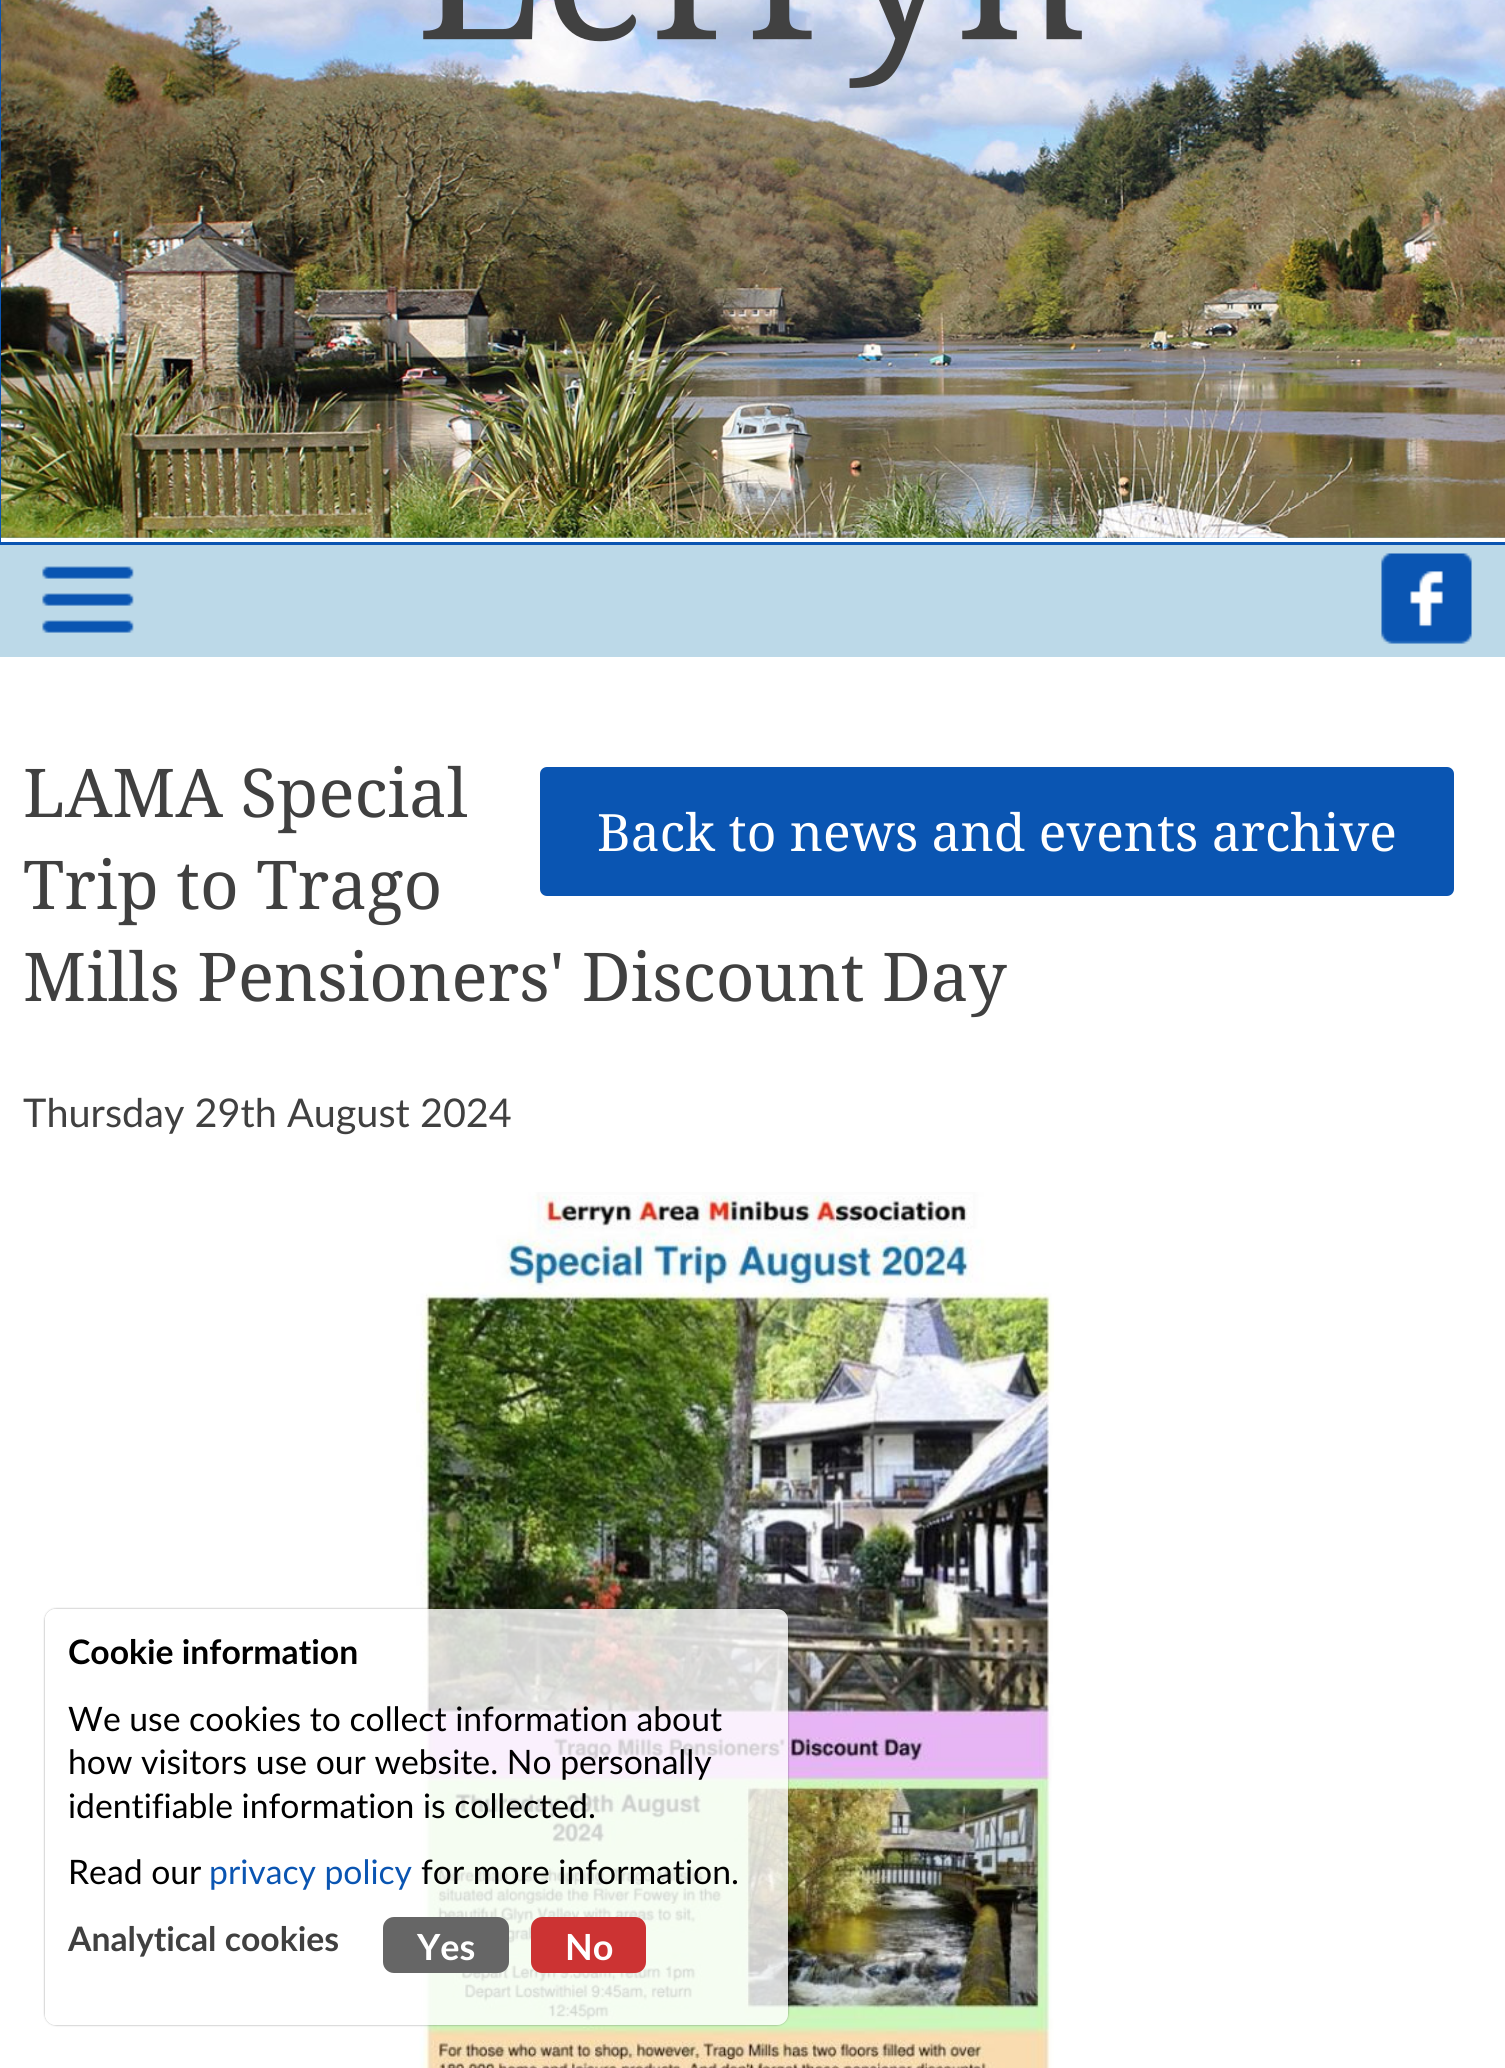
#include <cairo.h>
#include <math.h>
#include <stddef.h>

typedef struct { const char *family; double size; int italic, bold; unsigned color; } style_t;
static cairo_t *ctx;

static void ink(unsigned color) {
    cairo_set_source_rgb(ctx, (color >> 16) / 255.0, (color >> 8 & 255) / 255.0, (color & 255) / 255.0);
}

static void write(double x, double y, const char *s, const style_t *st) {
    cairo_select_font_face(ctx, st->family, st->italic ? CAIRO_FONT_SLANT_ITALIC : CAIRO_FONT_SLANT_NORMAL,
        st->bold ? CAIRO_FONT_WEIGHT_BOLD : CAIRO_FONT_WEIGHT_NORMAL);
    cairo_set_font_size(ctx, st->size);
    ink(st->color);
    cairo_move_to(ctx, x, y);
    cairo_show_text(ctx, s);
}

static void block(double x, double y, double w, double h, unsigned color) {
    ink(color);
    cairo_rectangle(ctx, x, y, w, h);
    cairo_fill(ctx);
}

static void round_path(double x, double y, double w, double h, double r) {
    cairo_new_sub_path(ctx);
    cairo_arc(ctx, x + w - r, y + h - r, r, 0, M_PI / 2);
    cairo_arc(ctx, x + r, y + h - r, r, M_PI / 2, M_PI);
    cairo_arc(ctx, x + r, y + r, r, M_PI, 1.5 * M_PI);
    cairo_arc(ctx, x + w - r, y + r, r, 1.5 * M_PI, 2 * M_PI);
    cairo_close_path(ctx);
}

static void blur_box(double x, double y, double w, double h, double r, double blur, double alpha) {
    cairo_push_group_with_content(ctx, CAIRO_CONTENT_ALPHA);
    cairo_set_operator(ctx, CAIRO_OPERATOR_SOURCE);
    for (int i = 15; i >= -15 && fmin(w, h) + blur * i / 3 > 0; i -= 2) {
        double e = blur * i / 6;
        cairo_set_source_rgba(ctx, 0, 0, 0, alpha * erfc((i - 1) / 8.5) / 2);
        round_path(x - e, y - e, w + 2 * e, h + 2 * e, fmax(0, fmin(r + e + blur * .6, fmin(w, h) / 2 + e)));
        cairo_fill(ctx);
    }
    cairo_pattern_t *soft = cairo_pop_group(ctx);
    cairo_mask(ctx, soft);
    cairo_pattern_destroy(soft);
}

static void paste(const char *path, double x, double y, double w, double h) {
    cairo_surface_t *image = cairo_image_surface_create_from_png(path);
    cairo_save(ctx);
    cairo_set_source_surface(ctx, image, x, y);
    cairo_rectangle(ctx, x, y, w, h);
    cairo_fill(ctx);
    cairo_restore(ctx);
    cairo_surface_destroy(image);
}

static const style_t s1 = {"Noto Serif", 67.3, 0, 0, 0x404040};
static const style_t s2 = {"Noto Serif", 51.5, 0, 0, 0xffffff};
static const style_t s3 = {"Lato", 39.6, 0, 0, 0x404040};
static const style_t s4 = {"Lato", 33.7, 0, 1, 0x000000};
static const style_t s5 = {"Lato", 33.7, 0, 0, 0x000000};
static const style_t s6 = {"Lato", 33.7, 0, 0, 0x0a55b2};
static const style_t s7 = {"Lato", 33.7, 0, 1, 0x404040};
static const style_t s8 = {"Lato", 36, 0, 1, 0xffffff};

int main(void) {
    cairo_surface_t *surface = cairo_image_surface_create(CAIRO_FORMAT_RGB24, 1505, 2068);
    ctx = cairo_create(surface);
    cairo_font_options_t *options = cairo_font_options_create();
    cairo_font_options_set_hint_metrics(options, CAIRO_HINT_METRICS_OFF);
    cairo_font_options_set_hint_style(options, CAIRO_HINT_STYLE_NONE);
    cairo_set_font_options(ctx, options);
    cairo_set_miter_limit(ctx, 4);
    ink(0xffffff);
    cairo_paint(ctx);
    paste("pic1.png", 1, 0, 1504, 538);
    cairo_rectangle(ctx, -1.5, -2.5, 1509, 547);
    ink(0x0a55b2);
    cairo_set_line_width(ctx, 5);
    cairo_stroke(ctx);
    paste("pic2.png", 423, 0, 659, 88);
    block(0, 545, 1505, 112, 0xbcd9e8);
    paste("pic3.png", 42, 566, 92, 67);
    paste("pic4.png", 1381, 553, 91, 91);
    write(23, 817, "LAMA Special", &s1);
    write(23, 909, "Trip to Trago", &s1);
    write(23, 1001, "Mills Pensioners' Discount Day", &s1);
    ink(0x0a55b2);
    round_path(540, 767, 914, 129, 7);
    cairo_fill(ctx);
    write(597, 851, "Back to news and events archive", &s2);
    write(23, 1127, "Thursday 29th August 2024", &s3);
    paste("pic5.png", 416, 1192, 638, 876);
    cairo_save(ctx);
    cairo_set_fill_rule(ctx, CAIRO_FILL_RULE_EVEN_ODD);
    cairo_new_path(ctx);
    cairo_move_to(ctx, 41, 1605);
    cairo_line_to(ctx, 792, 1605);
    cairo_line_to(ctx, 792, 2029);
    cairo_line_to(ctx, 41, 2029);
    cairo_close_path(ctx);
    cairo_move_to(ctx, 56, 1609);
    cairo_line_to(ctx, 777, 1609);
    cairo_curve_to(ctx, 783, 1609, 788, 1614, 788, 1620);
    cairo_line_to(ctx, 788, 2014);
    cairo_curve_to(ctx, 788, 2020, 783, 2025, 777, 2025);
    cairo_line_to(ctx, 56, 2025);
    cairo_curve_to(ctx, 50, 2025, 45, 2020, 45, 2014);
    cairo_line_to(ctx, 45, 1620);
    cairo_curve_to(ctx, 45, 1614, 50, 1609, 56, 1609);
    cairo_close_path(ctx);
    cairo_clip(ctx);
    ink(0x000000);
    blur_box(45, 1609, 743, 416, 11, 1, 0.4);
    cairo_restore(ctx);
    cairo_set_source_rgba(ctx, 1, 1, 1, 0.8);
    round_path(45, 1609, 743, 416, 11);
    cairo_fill(ctx);
    write(68, 1664, "Cookie information", &s4);
    write(68, 1731, "We use cookies to collect information about", &s5);
    write(68, 1774, "how visitors use our website. No personally", &s5);
    write(68, 1818, "identifiable information is collected.", &s5);
    write(68, 1884, "Read our", &s5);
    write(209, 1884, "privacy policy", &s6);
    write(421, 1884, "for more information.", &s5);
    write(68, 1951, "Analytical cookies", &s7);
    ink(0x666666);
    round_path(383, 1917, 126, 56, 11);
    cairo_fill(ctx);
    write(417, 1960, "Yes", &s8);
    ink(0xcc3333);
    round_path(531, 1917, 115, 56, 11);
    cairo_fill(ctx);
    write(565, 1960, "No", &s8);
    cairo_surface_write_to_png(surface, "screenshot.png");
    cairo_font_options_destroy(options);
    cairo_destroy(ctx);
    cairo_surface_destroy(surface);
    return 0;
}
